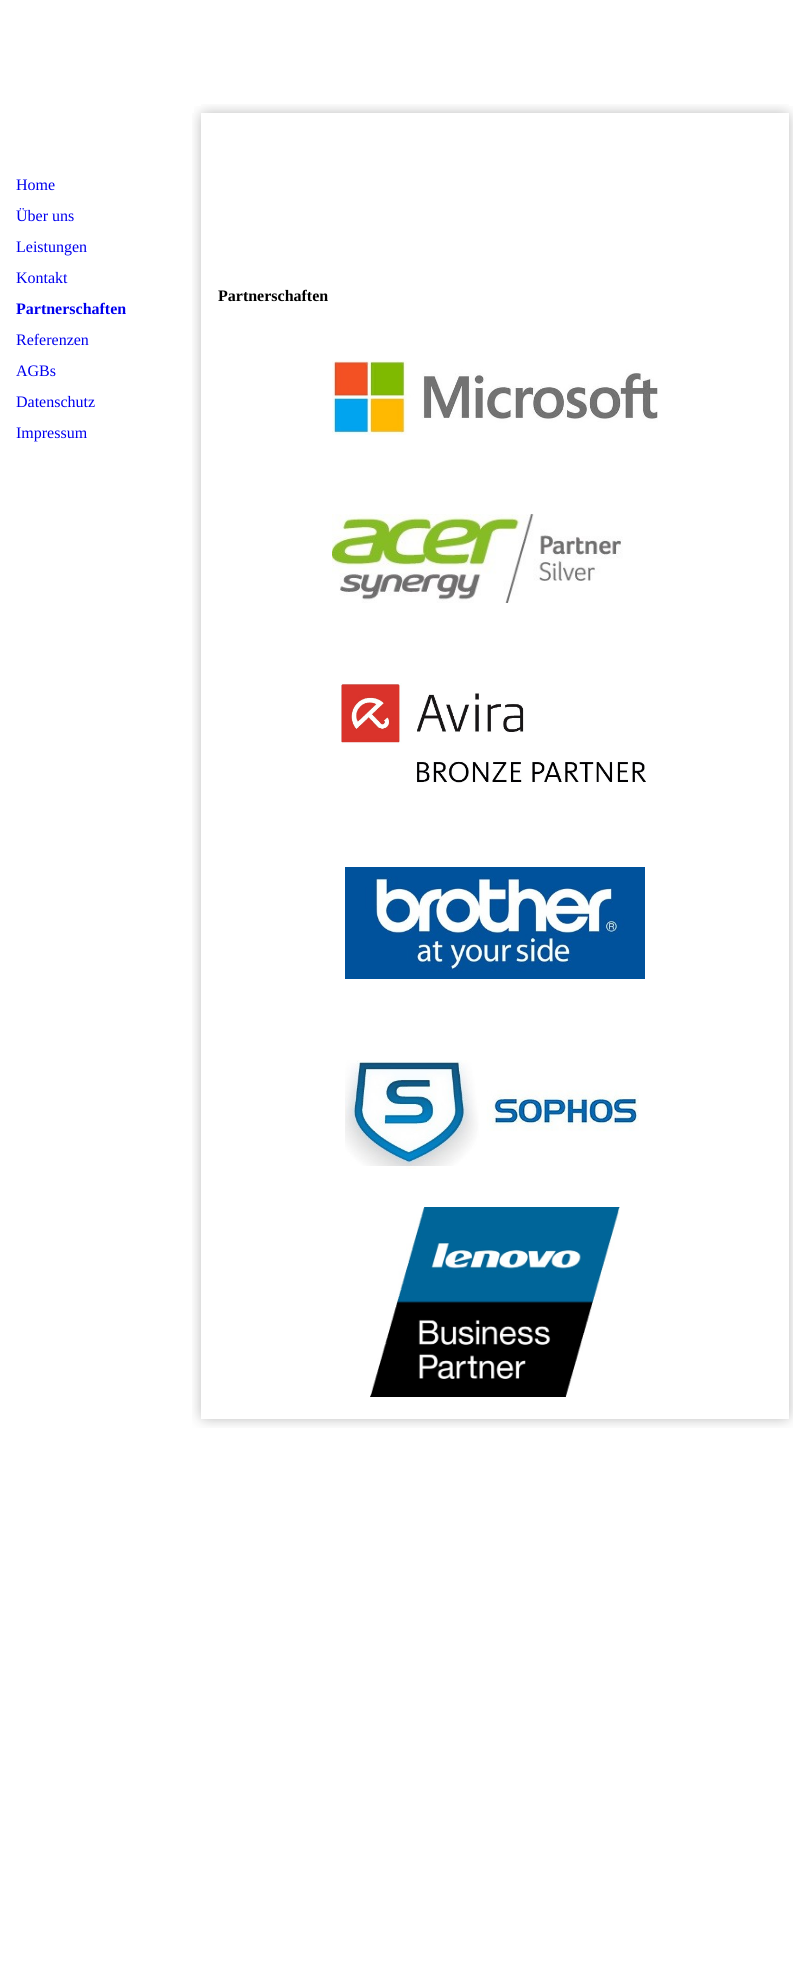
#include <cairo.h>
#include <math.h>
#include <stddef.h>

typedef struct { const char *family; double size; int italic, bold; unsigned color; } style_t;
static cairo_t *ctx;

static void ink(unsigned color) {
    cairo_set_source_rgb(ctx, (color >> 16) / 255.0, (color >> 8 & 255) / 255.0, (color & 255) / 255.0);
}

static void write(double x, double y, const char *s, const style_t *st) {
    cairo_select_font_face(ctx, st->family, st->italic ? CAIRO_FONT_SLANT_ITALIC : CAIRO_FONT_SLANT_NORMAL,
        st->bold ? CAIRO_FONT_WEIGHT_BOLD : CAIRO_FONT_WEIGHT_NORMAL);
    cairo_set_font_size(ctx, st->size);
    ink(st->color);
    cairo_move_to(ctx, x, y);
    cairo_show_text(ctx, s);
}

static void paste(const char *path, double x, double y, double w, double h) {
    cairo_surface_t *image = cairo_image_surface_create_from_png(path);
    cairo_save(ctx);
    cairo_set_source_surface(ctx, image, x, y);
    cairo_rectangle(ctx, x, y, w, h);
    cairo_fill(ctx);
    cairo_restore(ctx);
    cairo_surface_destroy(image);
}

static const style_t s1 = {"Liberation Serif", 16, 0, 0, 0x0000ee};
static const style_t s2 = {"Liberation Serif", 16, 0, 1, 0x0000ee};
static const style_t s3 = {"Liberation Serif", 16, 0, 1, 0x000000};

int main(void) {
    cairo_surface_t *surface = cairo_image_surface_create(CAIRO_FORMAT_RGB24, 793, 1978);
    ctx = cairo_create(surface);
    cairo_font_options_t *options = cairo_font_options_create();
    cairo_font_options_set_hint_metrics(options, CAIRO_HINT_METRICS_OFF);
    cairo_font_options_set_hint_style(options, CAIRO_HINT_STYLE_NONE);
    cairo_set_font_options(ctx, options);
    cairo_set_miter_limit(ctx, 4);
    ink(0xffffff);
    cairo_paint(ctx);
    paste("pic1.png", 194, 106, 7, 7);
    paste("pic2.png", 201, 104, 588, 9);
    paste("pic3.png", 789, 106, 4, 7);
    paste("pic4.png", 192, 113, 9, 1289);
    write(16, 190, "Home", &s1);
    write(16, 221, "Über uns", &s1);
    write(16, 252, "Leistungen", &s1);
    write(16, 283, "Kontakt", &s1);
    write(16, 314, "Partnerschaften", &s2);
    write(16, 345, "Referenzen", &s1);
    write(16, 376, "AGBs", &s1);
    write(16, 407, "Datenschutz", &s1);
    write(16, 438, "Impressum", &s1);
    write(218, 301, "Partnerschaften", &s3);
    paste("pic5.png", 332, 360, 326, 75);
    paste("pic6.png", 332, 514, 291, 89);
    paste("pic7.png", 341, 683, 305, 100);
    paste("pic8.png", 345, 867, 300, 112);
    paste("pic9.png", 345, 1060, 294, 109);
    paste("pic10.png", 370, 1207, 250, 190);
    paste("pic11.png", 789, 113, 4, 1289);
    paste("pic12.png", 192, 1402, 601, 26);
    cairo_surface_write_to_png(surface, "screenshot.png");
    cairo_font_options_destroy(options);
    cairo_destroy(ctx);
    cairo_surface_destroy(surface);
    return 0;
}
